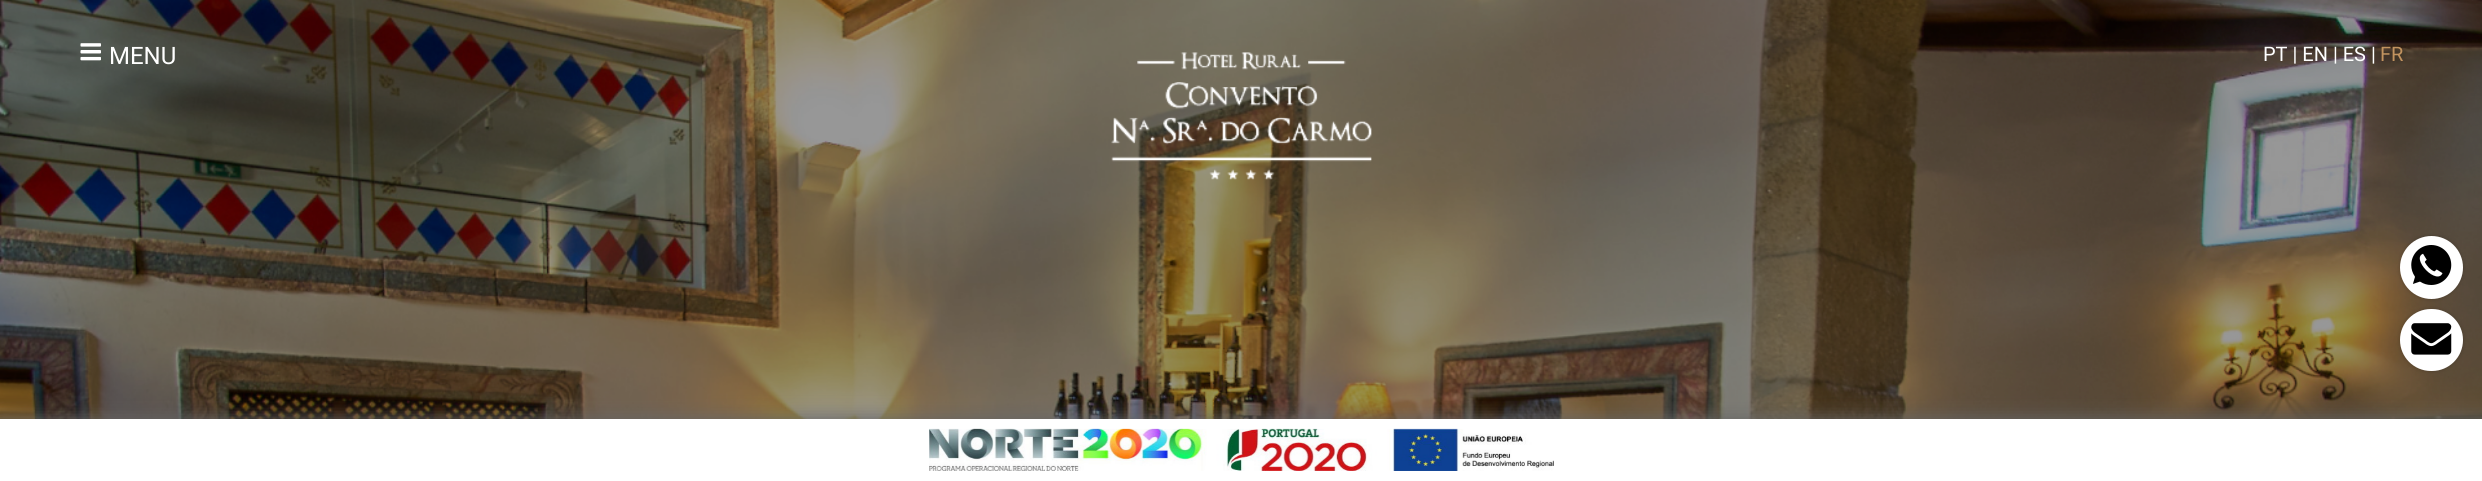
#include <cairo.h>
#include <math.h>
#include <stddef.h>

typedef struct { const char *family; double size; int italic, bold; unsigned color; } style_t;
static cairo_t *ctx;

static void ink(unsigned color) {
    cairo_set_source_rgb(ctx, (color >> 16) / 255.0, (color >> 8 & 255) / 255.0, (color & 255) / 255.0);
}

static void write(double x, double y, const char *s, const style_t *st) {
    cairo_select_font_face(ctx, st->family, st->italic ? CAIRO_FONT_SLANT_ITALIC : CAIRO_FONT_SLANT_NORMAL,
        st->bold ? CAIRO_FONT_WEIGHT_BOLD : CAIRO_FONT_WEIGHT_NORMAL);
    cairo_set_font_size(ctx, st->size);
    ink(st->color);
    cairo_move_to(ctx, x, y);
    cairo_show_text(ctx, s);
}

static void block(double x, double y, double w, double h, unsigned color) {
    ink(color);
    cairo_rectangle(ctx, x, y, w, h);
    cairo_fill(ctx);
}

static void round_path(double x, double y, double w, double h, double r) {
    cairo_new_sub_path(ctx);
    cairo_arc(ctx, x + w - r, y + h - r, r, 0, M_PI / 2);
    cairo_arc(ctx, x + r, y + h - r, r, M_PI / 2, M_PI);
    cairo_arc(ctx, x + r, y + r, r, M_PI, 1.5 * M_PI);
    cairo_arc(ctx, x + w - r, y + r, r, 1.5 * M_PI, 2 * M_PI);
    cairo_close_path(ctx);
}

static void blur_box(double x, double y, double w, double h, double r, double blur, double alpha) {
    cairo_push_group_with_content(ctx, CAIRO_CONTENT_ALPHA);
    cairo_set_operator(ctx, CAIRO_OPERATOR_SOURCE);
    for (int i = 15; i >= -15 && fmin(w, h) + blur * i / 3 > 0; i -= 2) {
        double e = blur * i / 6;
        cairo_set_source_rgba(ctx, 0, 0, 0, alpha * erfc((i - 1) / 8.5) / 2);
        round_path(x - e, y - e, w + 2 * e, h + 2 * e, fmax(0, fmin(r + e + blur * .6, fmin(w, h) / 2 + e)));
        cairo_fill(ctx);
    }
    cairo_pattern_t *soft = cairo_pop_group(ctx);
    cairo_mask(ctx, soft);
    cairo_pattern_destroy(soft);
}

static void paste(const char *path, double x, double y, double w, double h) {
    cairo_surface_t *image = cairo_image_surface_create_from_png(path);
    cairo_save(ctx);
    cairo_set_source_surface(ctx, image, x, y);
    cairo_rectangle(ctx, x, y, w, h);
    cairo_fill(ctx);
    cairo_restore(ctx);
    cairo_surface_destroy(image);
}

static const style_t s1 = {"Roboto", 24, 0, 0, 0xffffff};
static const style_t s2 = {"Roboto", 20, 0, 0, 0xffffff};
static const style_t s3 = {"Roboto", 20, 0, 0, 0xc1935f};

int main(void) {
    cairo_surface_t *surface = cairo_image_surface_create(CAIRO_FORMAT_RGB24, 2482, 481);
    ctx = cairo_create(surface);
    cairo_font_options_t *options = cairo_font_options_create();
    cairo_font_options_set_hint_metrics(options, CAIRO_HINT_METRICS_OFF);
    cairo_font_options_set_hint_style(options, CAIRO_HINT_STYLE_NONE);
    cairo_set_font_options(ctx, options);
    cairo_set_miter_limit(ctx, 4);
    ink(0xffffff);
    cairo_paint(ctx);
    paste("pic1.png", 0, 0, 2482, 419);
    paste("pic2.png", 80, 43, 21, 18);
    write(109, 64, "MENU", &s1);
    paste("pic3.png", 1111, 52, 261, 128);
    write(2263, 61, "PT | EN | ES |", &s2);
    write(2380, 61, "FR", &s3);
    ink(0x000000);
    blur_box(2400, 236, 63, 63, 31.5, 2, 0.2);
    ink(0xffffff);
    cairo_arc(ctx, 2431.5, 267.5, 31.5, 0, 2 * M_PI);
    cairo_fill(ctx);
    paste("pic4.png", 2411, 245, 41, 40);
    ink(0x000000);
    blur_box(2400, 309, 63, 62, 31, 2, 0.2);
    ink(0xffffff);
    round_path(2400, 309, 63, 62, 31);
    cairo_fill(ctx);
    paste("pic5.png", 2411, 323, 41, 32);
    ink(0x666666);
    blur_box(-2, 418, 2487, 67, 0, 9, 1);
    block(0, 419, 2482, 62, 0xffffff);
    paste("pic6.png", 929, 428, 625, 43);
    cairo_surface_write_to_png(surface, "screenshot.png");
    cairo_font_options_destroy(options);
    cairo_destroy(ctx);
    cairo_surface_destroy(surface);
    return 0;
}
